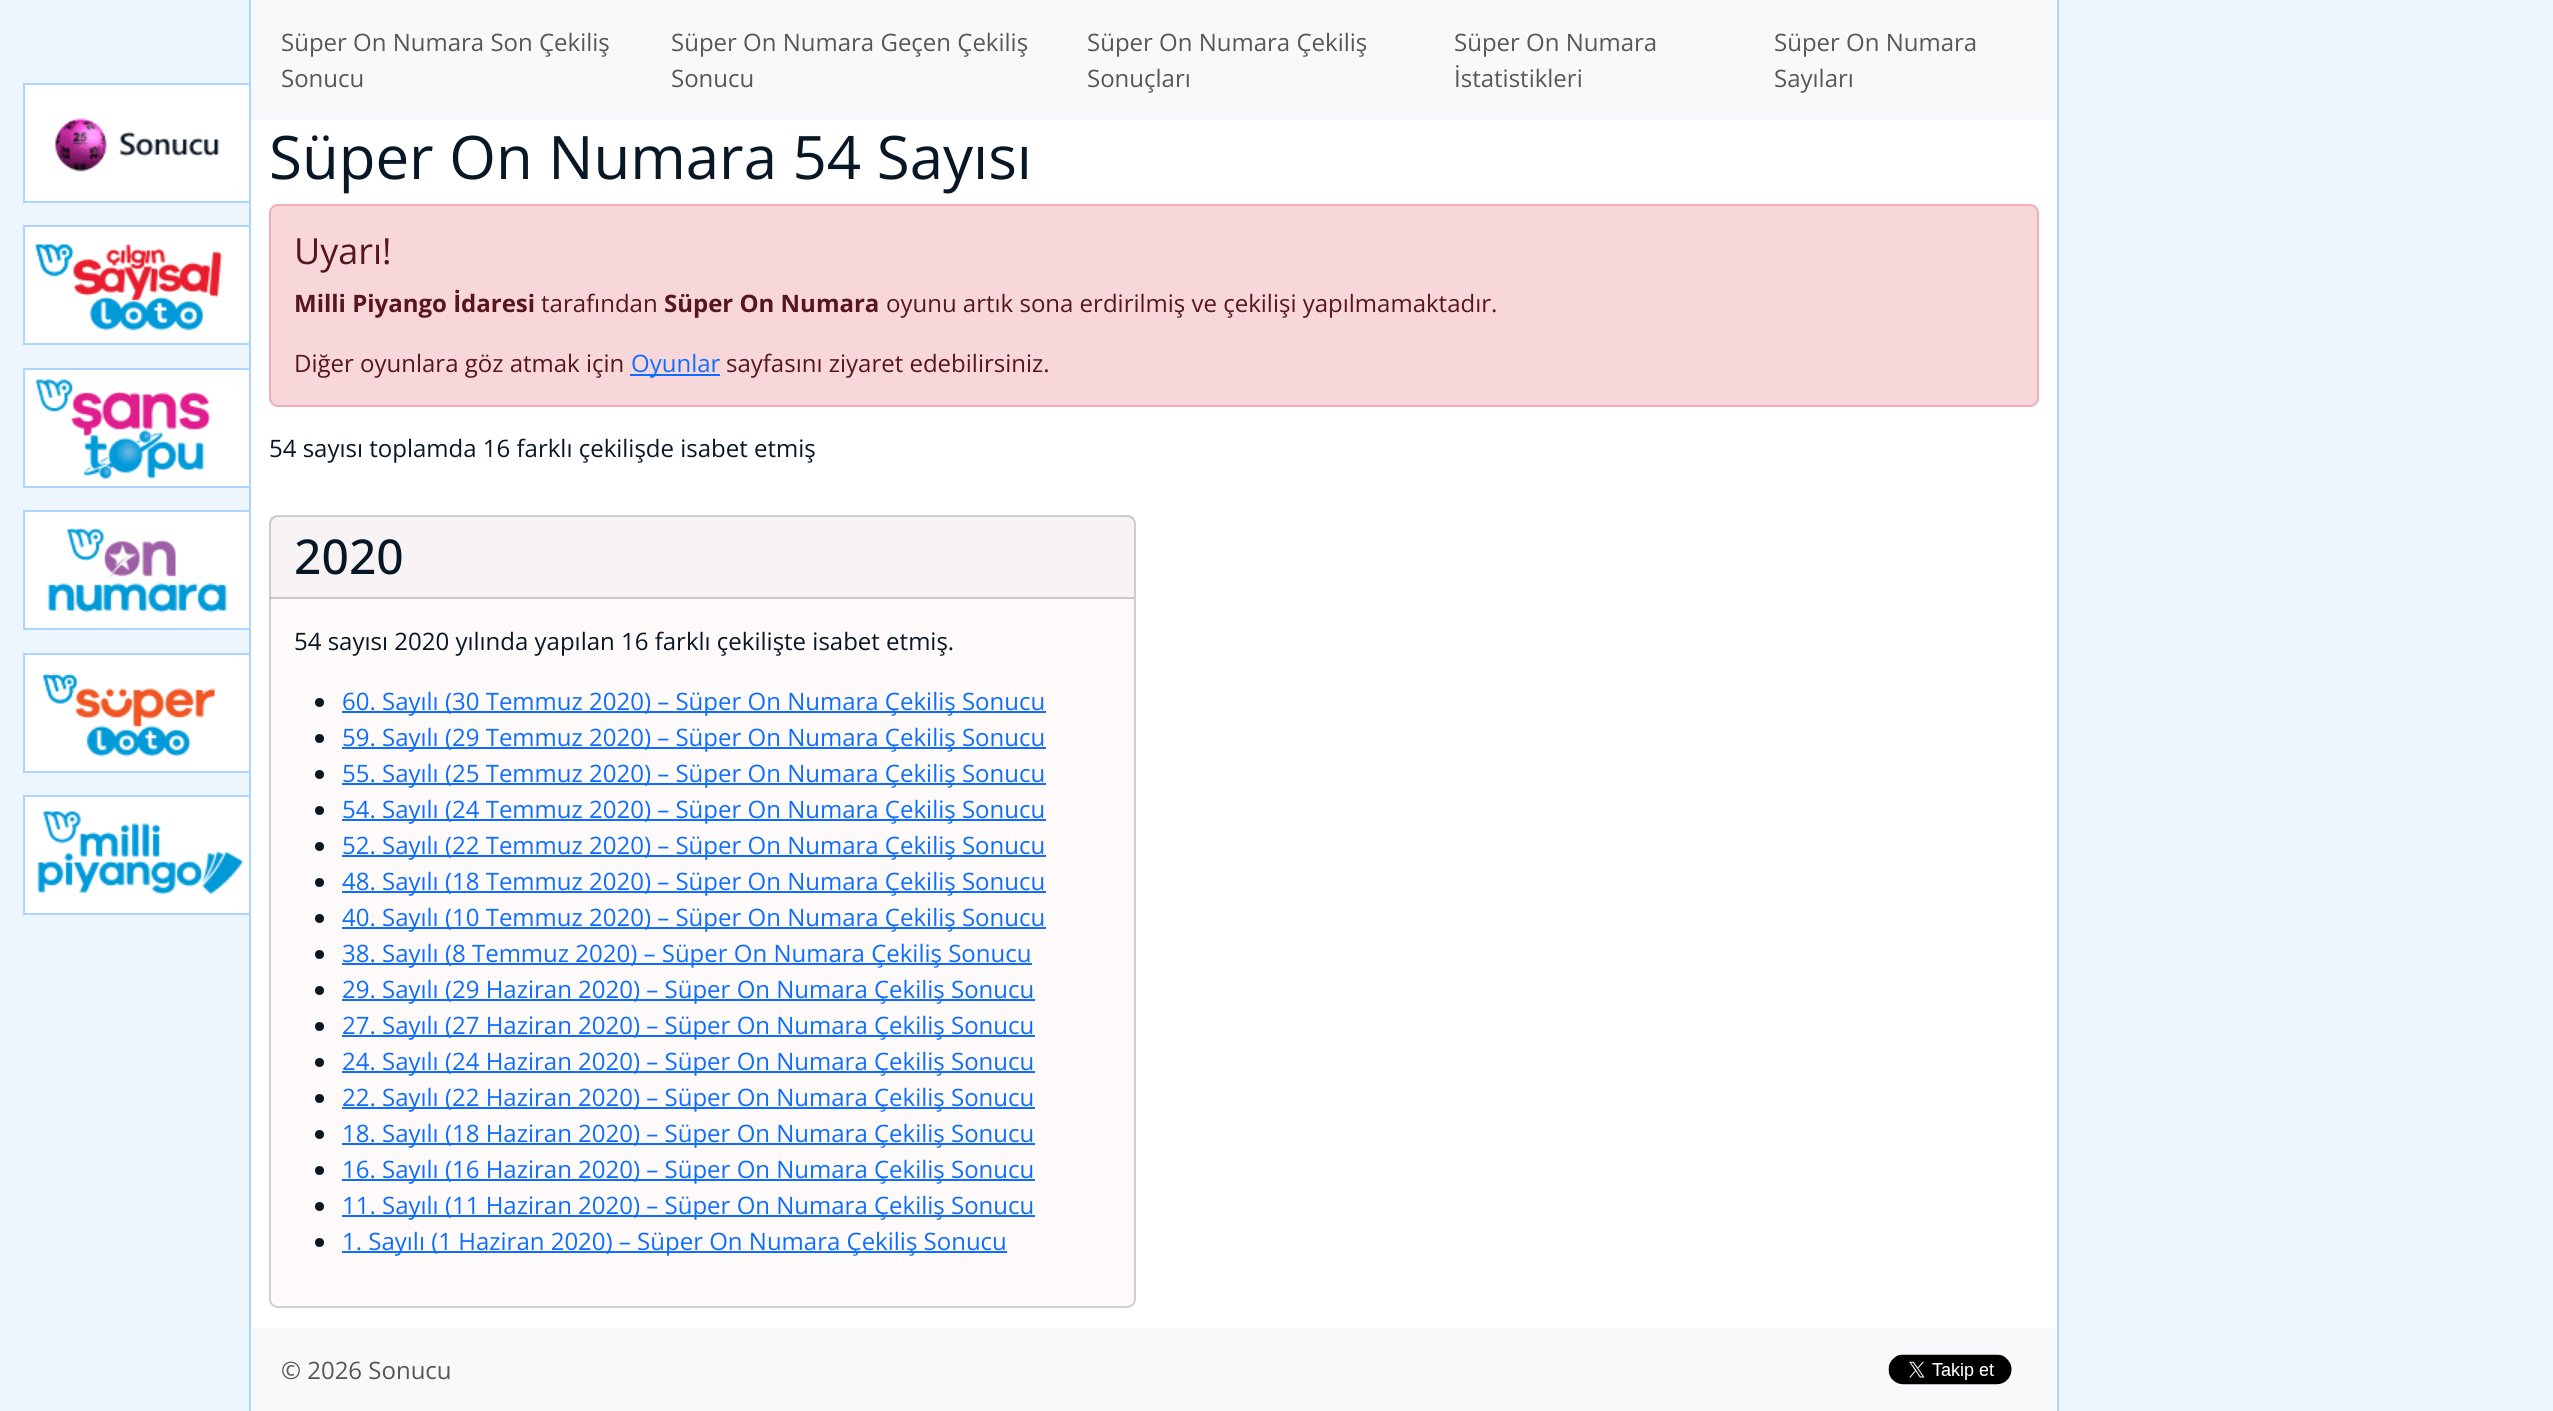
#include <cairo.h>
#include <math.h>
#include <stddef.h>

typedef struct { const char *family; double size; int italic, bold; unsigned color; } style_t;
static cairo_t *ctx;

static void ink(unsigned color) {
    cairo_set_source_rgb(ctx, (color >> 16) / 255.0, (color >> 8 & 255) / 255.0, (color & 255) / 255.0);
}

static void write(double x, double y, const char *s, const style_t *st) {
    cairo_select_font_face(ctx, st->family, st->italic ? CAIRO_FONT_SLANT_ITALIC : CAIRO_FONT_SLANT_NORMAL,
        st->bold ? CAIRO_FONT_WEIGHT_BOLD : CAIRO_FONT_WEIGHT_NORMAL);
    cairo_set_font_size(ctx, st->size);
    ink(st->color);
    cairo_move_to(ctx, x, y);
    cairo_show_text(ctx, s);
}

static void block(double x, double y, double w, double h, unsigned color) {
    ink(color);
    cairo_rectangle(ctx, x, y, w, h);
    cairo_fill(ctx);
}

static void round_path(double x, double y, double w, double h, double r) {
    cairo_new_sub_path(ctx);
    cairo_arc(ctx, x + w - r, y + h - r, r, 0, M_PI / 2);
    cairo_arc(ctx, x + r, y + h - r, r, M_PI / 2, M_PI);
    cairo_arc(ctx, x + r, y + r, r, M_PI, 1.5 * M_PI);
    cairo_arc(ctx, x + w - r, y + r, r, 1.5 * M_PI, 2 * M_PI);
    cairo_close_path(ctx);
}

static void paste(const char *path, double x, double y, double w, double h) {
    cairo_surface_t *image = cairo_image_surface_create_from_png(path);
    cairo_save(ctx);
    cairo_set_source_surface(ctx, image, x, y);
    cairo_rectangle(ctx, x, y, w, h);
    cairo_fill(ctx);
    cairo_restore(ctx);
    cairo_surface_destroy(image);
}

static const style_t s1 = {"Open Sans", 24, 0, 0, 0x575758};
static const style_t s2 = {"Open Sans", 60, 0, 0, 0x071726};
static const style_t s3 = {"Open Sans", 36, 0, 0, 0x58151c};
static const style_t s4 = {"Open Sans", 24, 0, 1, 0x58151c};
static const style_t s5 = {"Open Sans", 24, 0, 0, 0x58151c};
static const style_t s6 = {"Open Sans", 24, 0, 0, 0x0d6efd};
static const style_t s7 = {"Open Sans", 24, 0, 0, 0x071726};
static const style_t s8 = {"Open Sans Medium", 48, 0, 0, 0x071726};

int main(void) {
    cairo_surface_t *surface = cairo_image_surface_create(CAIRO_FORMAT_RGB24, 2553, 1411);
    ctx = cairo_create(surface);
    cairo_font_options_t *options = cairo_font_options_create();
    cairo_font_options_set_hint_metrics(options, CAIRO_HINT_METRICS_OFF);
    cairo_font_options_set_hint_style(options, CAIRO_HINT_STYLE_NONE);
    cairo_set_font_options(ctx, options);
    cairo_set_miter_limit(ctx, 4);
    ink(0xedf6ff);
    cairo_paint(ctx);
    block(25, 85, 224, 116, 0xffffff);
    paste("pic1.png", 55, 118, 165, 54);
    block(249, 0, 2, 1411, 0xabd5ff);
    cairo_rectangle(ctx, 24, 84, 226, 118);
    cairo_stroke(ctx);
    block(25, 227, 224, 116, 0xffffff);
    paste("pic2.png", 34, 244, 189, 87);
    cairo_rectangle(ctx, 24, 226, 226, 118);
    ink(0xabd5ff);
    cairo_stroke(ctx);
    block(25, 370, 224, 116, 0xffffff);
    paste("pic3.png", 35, 379, 176, 100);
    cairo_rectangle(ctx, 24, 369, 226, 118);
    ink(0xabd5ff);
    cairo_stroke(ctx);
    block(25, 512, 224, 116, 0xffffff);
    paste("pic4.png", 47, 527, 180, 86);
    cairo_rectangle(ctx, 24, 511, 226, 118);
    ink(0xabd5ff);
    cairo_stroke(ctx);
    block(25, 655, 224, 116, 0xffffff);
    paste("pic5.png", 42, 673, 175, 84);
    cairo_rectangle(ctx, 24, 654, 226, 118);
    ink(0xabd5ff);
    cairo_stroke(ctx);
    block(25, 797, 224, 116, 0xffffff);
    paste("pic6.png", 37, 811, 207, 84);
    cairo_rectangle(ctx, 24, 796, 226, 118);
    ink(0xabd5ff);
    cairo_stroke(ctx);
    block(251, 120, 1806, 1208, 0xffffff);
    block(2057, 0, 2, 1411, 0xabd5ff);
    block(251, 0, 1806, 120, 0xf8f9fa);
    write(281, 51, "Süper On Numara Son Çekiliş", &s1);
    write(281, 87, "Sonucu", &s1);
    write(671, 51, "Süper On Numara Geçen Çekiliş", &s1);
    write(671, 87, "Sonucu", &s1);
    write(1087, 51, "Süper On Numara Çekiliş", &s1);
    write(1087, 87, "Sonuçları", &s1);
    write(1454, 51, "Süper On Numara", &s1);
    write(1454, 87, "İstatistikleri", &s1);
    write(1774, 51, "Süper On Numara", &s1);
    write(1774, 87, "Sayıları", &s1);
    write(269, 179, "Süper On Numara 54 Sayısı", &s2);
    ink(0xf8d7da);
    round_path(270, 205, 1768, 201, 8);
    cairo_fill_preserve(ctx);
    ink(0xf1aeb5);
    cairo_stroke(ctx);
    write(294, 264, "Uyarı!", &s3);
    write(294, 312, "Milli Piyango İdaresi", &s4);
    write(541, 312, "tarafından", &s5);
    write(664, 312, "Süper On Numara", &s4);
    write(886, 312, "oyunu artık sona erdirilmiş ve çekilişi yapılmamaktadır.", &s5);
    write(294, 372, "Diğer oyunlara göz atmak için", &s5);
    block(630, 374, 90, 2, 0x0d6efd);
    write(631, 372, "Oyunlar", &s6);
    write(726, 372, "sayfasını ziyaret edebilirsiniz.", &s5);
    write(269, 457, "54 sayısı toplamda 16 farklı çekilişde isabet etmiş", &s7);
    ink(0xfffafa);
    round_path(270, 516, 865, 791, 8);
    cairo_fill_preserve(ctx);
    ink(0xd2cece);
    cairo_stroke(ctx);
    cairo_set_source_rgba(ctx, 0.027, 0.09, 0.149, 0.03);
    cairo_rectangle(ctx, 270, 516, 864, 83);
    cairo_fill(ctx);
    cairo_set_source_rgba(ctx, 0, 0, 0, 0.18);
    cairo_rectangle(ctx, 270, 597, 864, 2);
    cairo_fill(ctx);
    write(294, 574, "2020", &s8);
    write(294, 650, "54 sayısı 2020 yılında yapılan 16 farklı çekilişte isabet etmiş.", &s7);
    cairo_new_path(ctx);
    cairo_arc(ctx, 319.5, 702.5, 4.5, 0, 2 * M_PI);
    cairo_fill(ctx);
    block(342, 711, 704, 2, 0x0d6efd);
    write(342, 710, "60. Sayılı (30 Temmuz 2020) – Süper On Numara Çekiliş Sonucu", &s6);
    ink(0x071726);
    cairo_new_path(ctx);
    cairo_arc(ctx, 319.5, 738.5, 4.5, 0, 2 * M_PI);
    cairo_fill(ctx);
    block(342, 747, 704, 2, 0x0d6efd);
    write(342, 746, "59. Sayılı (29 Temmuz 2020) – Süper On Numara Çekiliş Sonucu", &s6);
    ink(0x071726);
    cairo_new_path(ctx);
    cairo_arc(ctx, 319.5, 774.5, 4.5, 0, 2 * M_PI);
    cairo_fill(ctx);
    block(342, 783, 704, 2, 0x0d6efd);
    write(342, 782, "55. Sayılı (25 Temmuz 2020) – Süper On Numara Çekiliş Sonucu", &s6);
    ink(0x071726);
    cairo_new_path(ctx);
    cairo_arc(ctx, 319.5, 810.5, 4.5, 0, 2 * M_PI);
    cairo_fill(ctx);
    block(342, 819, 704, 2, 0x0d6efd);
    write(342, 818, "54. Sayılı (24 Temmuz 2020) – Süper On Numara Çekiliş Sonucu", &s6);
    ink(0x071726);
    cairo_new_path(ctx);
    cairo_arc(ctx, 319.5, 846.5, 4.5, 0, 2 * M_PI);
    cairo_fill(ctx);
    block(342, 855, 704, 2, 0x0d6efd);
    write(342, 854, "52. Sayılı (22 Temmuz 2020) – Süper On Numara Çekiliş Sonucu", &s6);
    ink(0x071726);
    cairo_new_path(ctx);
    cairo_arc(ctx, 319.5, 882.5, 4.5, 0, 2 * M_PI);
    cairo_fill(ctx);
    block(342, 891, 704, 2, 0x0d6efd);
    write(342, 890, "48. Sayılı (18 Temmuz 2020) – Süper On Numara Çekiliş Sonucu", &s6);
    ink(0x071726);
    cairo_new_path(ctx);
    cairo_arc(ctx, 319.5, 918.5, 4.5, 0, 2 * M_PI);
    cairo_fill(ctx);
    block(342, 927, 704, 2, 0x0d6efd);
    write(342, 926, "40. Sayılı (10 Temmuz 2020) – Süper On Numara Çekiliş Sonucu", &s6);
    ink(0x071726);
    cairo_new_path(ctx);
    cairo_arc(ctx, 319.5, 954.5, 4.5, 0, 2 * M_PI);
    cairo_fill(ctx);
    block(342, 963, 690, 2, 0x0d6efd);
    write(342, 962, "38. Sayılı (8 Temmuz 2020) – Süper On Numara Çekiliş Sonucu", &s6);
    ink(0x071726);
    cairo_new_path(ctx);
    cairo_arc(ctx, 319.5, 990.5, 4.5, 0, 2 * M_PI);
    cairo_fill(ctx);
    block(342, 999, 693, 2, 0x0d6efd);
    write(342, 998, "29. Sayılı (29 Haziran 2020) – Süper On Numara Çekiliş Sonucu", &s6);
    ink(0x071726);
    cairo_new_path(ctx);
    cairo_arc(ctx, 319.5, 1026.5, 4.5, 0, 2 * M_PI);
    cairo_fill(ctx);
    block(342, 1035, 693, 2, 0x0d6efd);
    write(342, 1034, "27. Sayılı (27 Haziran 2020) – Süper On Numara Çekiliş Sonucu", &s6);
    ink(0x071726);
    cairo_new_path(ctx);
    cairo_arc(ctx, 319.5, 1062.5, 4.5, 0, 2 * M_PI);
    cairo_fill(ctx);
    block(342, 1071, 693, 2, 0x0d6efd);
    write(342, 1070, "24. Sayılı (24 Haziran 2020) – Süper On Numara Çekiliş Sonucu", &s6);
    ink(0x071726);
    cairo_new_path(ctx);
    cairo_arc(ctx, 319.5, 1098.5, 4.5, 0, 2 * M_PI);
    cairo_fill(ctx);
    block(342, 1107, 693, 2, 0x0d6efd);
    write(342, 1106, "22. Sayılı (22 Haziran 2020) – Süper On Numara Çekiliş Sonucu", &s6);
    ink(0x071726);
    cairo_new_path(ctx);
    cairo_arc(ctx, 319.5, 1134.5, 4.5, 0, 2 * M_PI);
    cairo_fill(ctx);
    block(342, 1143, 693, 2, 0x0d6efd);
    write(342, 1142, "18. Sayılı (18 Haziran 2020) – Süper On Numara Çekiliş Sonucu", &s6);
    ink(0x071726);
    cairo_new_path(ctx);
    cairo_arc(ctx, 319.5, 1170.5, 4.5, 0, 2 * M_PI);
    cairo_fill(ctx);
    block(342, 1179, 693, 2, 0x0d6efd);
    write(342, 1178, "16. Sayılı (16 Haziran 2020) – Süper On Numara Çekiliş Sonucu", &s6);
    ink(0x071726);
    cairo_new_path(ctx);
    cairo_arc(ctx, 319.5, 1206.5, 4.5, 0, 2 * M_PI);
    cairo_fill(ctx);
    block(342, 1215, 693, 2, 0x0d6efd);
    write(342, 1214, "11. Sayılı (11 Haziran 2020) – Süper On Numara Çekiliş Sonucu", &s6);
    ink(0x071726);
    cairo_new_path(ctx);
    cairo_arc(ctx, 319.5, 1242.5, 4.5, 0, 2 * M_PI);
    cairo_fill(ctx);
    block(342, 1251, 665, 2, 0x0d6efd);
    write(342, 1250, "1. Sayılı (1 Haziran 2020) – Süper On Numara Çekiliş Sonucu", &s6);
    block(251, 1328, 1806, 83, 0xf8f9fa);
    write(281, 1379, "© 2026 Sonucu", &s1);
    paste("pic7.png", 1888, 1354, 124, 31);
    cairo_surface_write_to_png(surface, "screenshot.png");
    cairo_font_options_destroy(options);
    cairo_destroy(ctx);
    cairo_surface_destroy(surface);
    return 0;
}
